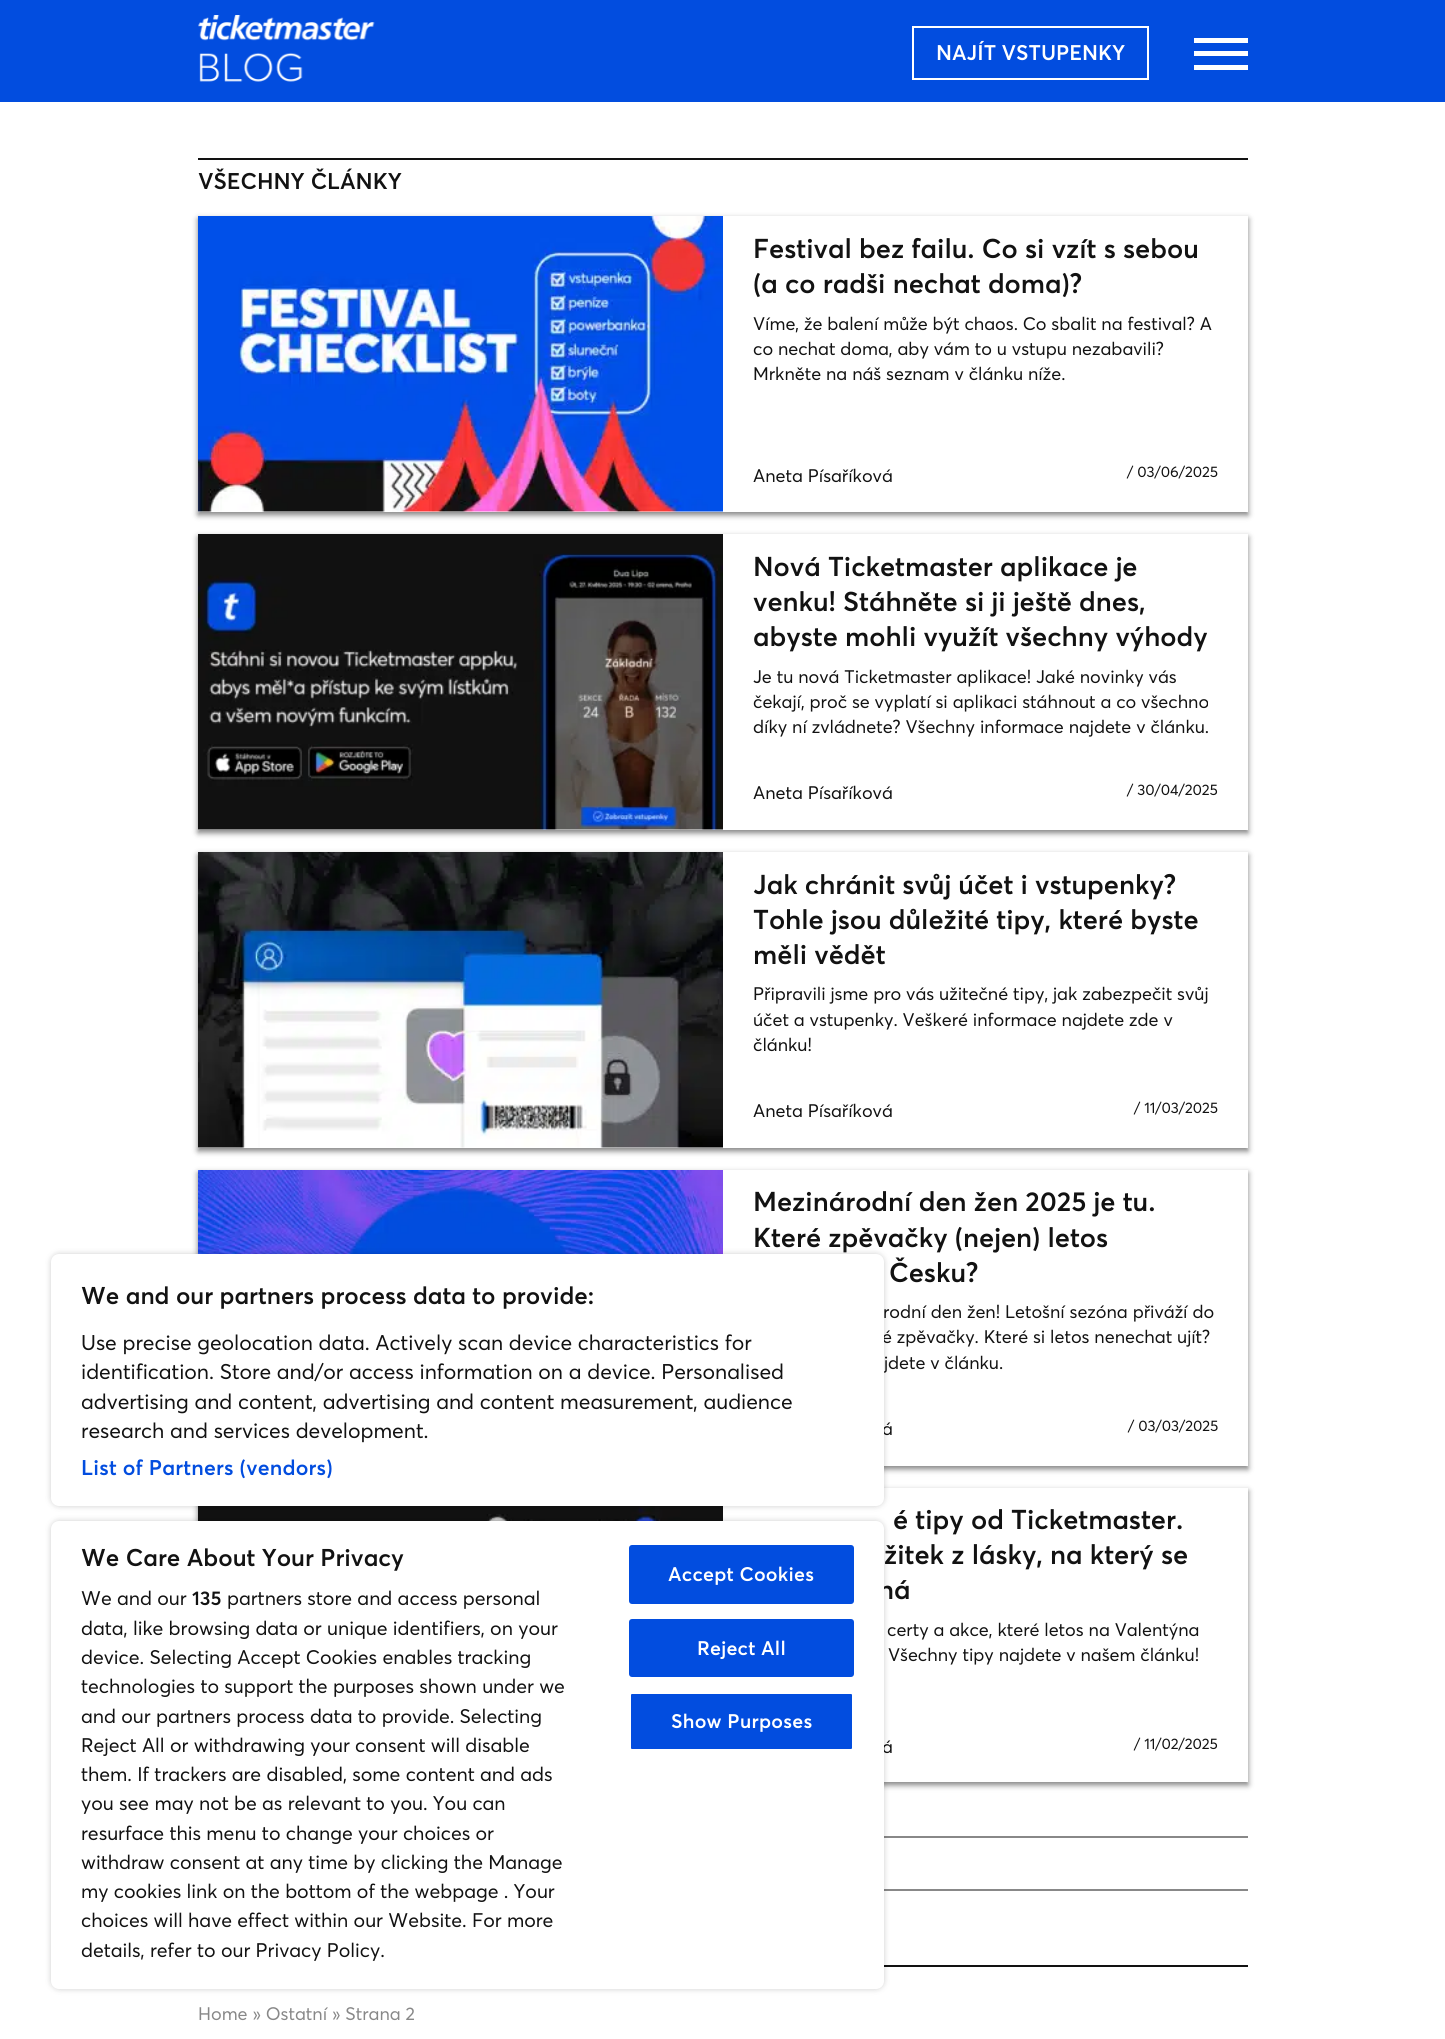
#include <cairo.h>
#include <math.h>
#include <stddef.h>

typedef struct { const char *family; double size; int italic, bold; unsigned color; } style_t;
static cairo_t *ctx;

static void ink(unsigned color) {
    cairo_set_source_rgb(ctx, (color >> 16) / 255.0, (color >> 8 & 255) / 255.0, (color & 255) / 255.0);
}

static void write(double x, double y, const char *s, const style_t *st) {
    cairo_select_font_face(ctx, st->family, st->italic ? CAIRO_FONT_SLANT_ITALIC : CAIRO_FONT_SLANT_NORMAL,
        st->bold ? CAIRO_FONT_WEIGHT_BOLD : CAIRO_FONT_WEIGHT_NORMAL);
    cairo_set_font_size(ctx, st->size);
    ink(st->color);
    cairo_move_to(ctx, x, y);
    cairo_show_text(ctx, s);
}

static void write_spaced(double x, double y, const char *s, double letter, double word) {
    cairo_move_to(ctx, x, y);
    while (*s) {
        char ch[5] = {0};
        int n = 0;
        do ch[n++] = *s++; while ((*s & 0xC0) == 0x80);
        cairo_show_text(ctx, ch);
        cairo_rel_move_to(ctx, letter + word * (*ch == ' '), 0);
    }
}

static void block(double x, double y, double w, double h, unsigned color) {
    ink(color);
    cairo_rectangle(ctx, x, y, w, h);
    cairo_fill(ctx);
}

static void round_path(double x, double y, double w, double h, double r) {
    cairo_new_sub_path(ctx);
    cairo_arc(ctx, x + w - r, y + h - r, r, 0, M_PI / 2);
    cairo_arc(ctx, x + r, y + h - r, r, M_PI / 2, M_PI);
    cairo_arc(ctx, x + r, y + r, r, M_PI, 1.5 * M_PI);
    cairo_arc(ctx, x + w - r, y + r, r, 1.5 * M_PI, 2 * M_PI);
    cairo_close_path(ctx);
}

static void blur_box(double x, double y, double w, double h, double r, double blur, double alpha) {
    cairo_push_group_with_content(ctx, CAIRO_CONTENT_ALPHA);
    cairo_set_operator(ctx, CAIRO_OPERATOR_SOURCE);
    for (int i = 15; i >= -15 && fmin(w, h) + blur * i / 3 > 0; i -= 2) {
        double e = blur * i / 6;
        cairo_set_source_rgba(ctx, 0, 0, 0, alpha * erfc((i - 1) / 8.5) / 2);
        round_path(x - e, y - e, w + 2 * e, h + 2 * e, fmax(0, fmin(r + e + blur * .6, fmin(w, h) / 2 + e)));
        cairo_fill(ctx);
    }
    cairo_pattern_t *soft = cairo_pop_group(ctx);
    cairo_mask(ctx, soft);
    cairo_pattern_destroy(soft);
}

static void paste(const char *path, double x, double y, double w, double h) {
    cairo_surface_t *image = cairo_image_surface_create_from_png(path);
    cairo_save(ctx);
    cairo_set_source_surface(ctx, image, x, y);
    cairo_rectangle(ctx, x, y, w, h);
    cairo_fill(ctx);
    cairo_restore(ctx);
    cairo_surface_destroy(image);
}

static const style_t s1 = {"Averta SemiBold", 21, 0, 0, 0xffffff};
static const style_t s2 = {"Averta SemiBold", 22.5, 0, 0, 0x121212};
static const style_t s3 = {"Averta SemiBold", 27, 0, 0, 0x121212};
static const style_t s4 = {"Averta", 18, 0, 0, 0x121212};
static const style_t s5 = {"Averta", 15, 0, 0, 0x121212};
static const style_t s6 = {"Averta SemiBold", 24, 0, 0, 0x121212};
static const style_t s7 = {"Averta", 21.1, 0, 0, 0x121212};
static const style_t s8 = {"Averta", 19.5, 0, 0, 0x121212};
static const style_t s9 = {"Averta SemiBold", 19.5, 0, 0, 0x121212};
static const style_t s10 = {"Averta", 18, 0, 0, 0x888888};

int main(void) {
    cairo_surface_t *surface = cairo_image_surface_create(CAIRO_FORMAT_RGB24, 1445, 2039);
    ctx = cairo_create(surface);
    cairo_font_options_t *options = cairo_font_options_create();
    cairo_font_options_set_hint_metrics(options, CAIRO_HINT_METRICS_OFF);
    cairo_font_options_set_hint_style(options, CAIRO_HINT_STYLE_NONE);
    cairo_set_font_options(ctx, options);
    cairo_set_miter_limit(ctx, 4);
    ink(0xffffff);
    cairo_paint(ctx);
    block(0, 0, 1445, 102, 0x024ddf);
    paste("pic1.png", 198, 15, 177, 67);
    cairo_rectangle(ctx, 913, 27, 235, 52);
    ink(0xffffff);
    cairo_stroke(ctx);
    write(936, 60, "NAJÍT VSTUPENKY", &s1);
    block(1194, 65, 54, 5, 0xffffff);
    block(1194, 38, 54, 5, 0xffffff);
    block(1194, 51, 54, 5, 0xffffff);
    block(198, 158, 1050, 2, 0x121212);
    write(198, 189, "VŠECHNY ČLÁNKY", &s2);
    cairo_save(ctx);
    cairo_set_fill_rule(ctx, CAIRO_FILL_RULE_EVEN_ODD);
    cairo_new_path(ctx);
    cairo_move_to(ctx, 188, 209);
    cairo_line_to(ctx, 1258, 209);
    cairo_line_to(ctx, 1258, 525);
    cairo_line_to(ctx, 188, 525);
    cairo_close_path(ctx);
    cairo_move_to(ctx, 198, 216);
    cairo_line_to(ctx, 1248, 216);
    cairo_line_to(ctx, 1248, 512);
    cairo_line_to(ctx, 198, 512);
    cairo_close_path(ctx);
    cairo_clip(ctx);
    ink(0x000000);
    blur_box(198, 219, 1050, 296, 0, 3, 0.5);
    cairo_restore(ctx);
    paste("pic2.png", 198, 216, 525, 296);
    write(753, 258, "Festival bez failu. Co si vzít s sebou", &s3);
    write(753, 293, "(a co radši nechat doma)?", &s3);
    write(753, 330, "Víme, že balení může být chaos. Co sbalit na festival? A", &s4);
    write(753, 355, "co nechat doma, aby vám to u vstupu nezabavili?", &s4);
    write(753, 380, "Mrkněte na náš seznam v článku níže.", &s4);
    write(753, 482, "Aneta Písaříková", &s4);
    write(1127, 477, "/ 03/06/2025", &s5);
    cairo_save(ctx);
    cairo_set_fill_rule(ctx, CAIRO_FILL_RULE_EVEN_ODD);
    cairo_new_path(ctx);
    cairo_move_to(ctx, 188, 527);
    cairo_line_to(ctx, 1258, 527);
    cairo_line_to(ctx, 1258, 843);
    cairo_line_to(ctx, 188, 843);
    cairo_close_path(ctx);
    cairo_move_to(ctx, 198, 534);
    cairo_line_to(ctx, 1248, 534);
    cairo_line_to(ctx, 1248, 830);
    cairo_line_to(ctx, 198, 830);
    cairo_close_path(ctx);
    cairo_clip(ctx);
    ink(0x000000);
    blur_box(198, 537, 1050, 296, 0, 3, 0.5);
    cairo_restore(ctx);
    paste("pic3.png", 198, 534, 525, 296);
    write(753, 576, "Nová Ticketmaster aplikace je", &s3);
    write(753, 611, "venku! Stáhněte si ji ještě dnes,", &s3);
    write(753, 646, "abyste mohli využít všechny výhody", &s3);
    write(753, 683, "Je tu nová Ticketmaster aplikace! Jaké novinky vás", &s4);
    write(753, 708, "čekají, proč se vyplatí si aplikaci stáhnout a co všechno", &s4);
    write(753, 733, "díky ní zvládnete? Všechny informace najdete v článku.", &s4);
    write(753, 799, "Aneta Písaříková", &s4);
    write(1127, 795, "/ 30/04/2025", &s5);
    cairo_save(ctx);
    cairo_set_fill_rule(ctx, CAIRO_FILL_RULE_EVEN_ODD);
    cairo_new_path(ctx);
    cairo_move_to(ctx, 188, 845);
    cairo_line_to(ctx, 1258, 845);
    cairo_line_to(ctx, 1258, 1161);
    cairo_line_to(ctx, 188, 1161);
    cairo_close_path(ctx);
    cairo_move_to(ctx, 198, 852);
    cairo_line_to(ctx, 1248, 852);
    cairo_line_to(ctx, 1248, 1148);
    cairo_line_to(ctx, 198, 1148);
    cairo_close_path(ctx);
    cairo_clip(ctx);
    ink(0x000000);
    blur_box(198, 855, 1050, 296, 0, 3, 0.5);
    cairo_restore(ctx);
    paste("pic4.png", 198, 852, 525, 296);
    write(753, 894, "Jak chránit svůj účet i vstupenky?", &s3);
    write(753, 929, "Tohle jsou důležité tipy, které byste", &s3);
    write(753, 964, "měli vědět", &s3);
    write(753, 1000, "Připravili jsme pro vás užitečné tipy, jak zabezpečit svůj", &s4);
    write(753, 1026, "účet a vstupenky. Veškeré informace najdete zde v", &s4);
    write(753, 1051, "článku!", &s4);
    write(753, 1117, "Aneta Písaříková", &s4);
    write(1134, 1113, "/ 11/03/2025", &s5);
    cairo_save(ctx);
    cairo_set_fill_rule(ctx, CAIRO_FILL_RULE_EVEN_ODD);
    cairo_new_path(ctx);
    cairo_move_to(ctx, 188, 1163);
    cairo_line_to(ctx, 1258, 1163);
    cairo_line_to(ctx, 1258, 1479);
    cairo_line_to(ctx, 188, 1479);
    cairo_close_path(ctx);
    cairo_move_to(ctx, 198, 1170);
    cairo_line_to(ctx, 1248, 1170);
    cairo_line_to(ctx, 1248, 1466);
    cairo_line_to(ctx, 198, 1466);
    cairo_close_path(ctx);
    cairo_clip(ctx);
    ink(0x000000);
    blur_box(198, 1173, 1050, 296, 0, 3, 0.5);
    cairo_restore(ctx);
    paste("pic5.png", 198, 1170, 525, 84);
    write(753, 1211, "Mezinárodní den žen 2025 je tu.", &s3);
    write(753, 1247, "Které zpěvačky (nejen) letos", &s3);
    write(889, 1282, "Česku?", &s3);
    write(883, 1318, "rodní den žen! Letošní sezóna přiváží do", &s4);
    write(882, 1343, "é zpěvačky. Které si letos nenechat ujít?", &s4);
    write(884, 1369, "jdete v článku.", &s4);
    write(882, 1435, "á", &s4);
    write(1128, 1431, "/ 03/03/2025", &s5);
    cairo_save(ctx);
    cairo_set_fill_rule(ctx, CAIRO_FILL_RULE_EVEN_ODD);
    cairo_new_path(ctx);
    cairo_move_to(ctx, 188, 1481);
    cairo_line_to(ctx, 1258, 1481);
    cairo_line_to(ctx, 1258, 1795);
    cairo_line_to(ctx, 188, 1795);
    cairo_close_path(ctx);
    cairo_move_to(ctx, 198, 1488);
    cairo_line_to(ctx, 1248, 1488);
    cairo_line_to(ctx, 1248, 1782);
    cairo_line_to(ctx, 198, 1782);
    cairo_close_path(ctx);
    cairo_clip(ctx);
    ink(0x000000);
    blur_box(198, 1491, 1050, 294, 0, 3, 0.5);
    cairo_restore(ctx);
    paste("pic6.png", 198, 1506, 525, 15);
    write(893, 1529, "é tipy od Ticketmaster.", &s3);
    write(884, 1564, "žitek z lásky, na který se", &s3);
    write(878, 1599, "ná", &s3);
    write(887, 1636, "certy a akce, které letos na Valentýna", &s4);
    write(888, 1661, "Všechny tipy najdete v našem článku!", &s4);
    write(882, 1753, "á", &s4);
    write(1134, 1749, "/ 11/02/2025", &s5);
    block(884, 1836, 364, 2, 0x888888);
    block(884, 1889, 364, 2, 0x888888);
    ink(0x000000);
    blur_box(51, 1254, 833, 252, 8, 3, 0.2);
    ink(0xffffff);
    round_path(51, 1254, 833, 252, 8);
    cairo_fill(ctx);
    write(81, 1304, "We and our partners process data to provide:", &s6);
    write(81, 1350, "Use precise geolocation data. Actively scan device characteristics for", &s7);
    write(81, 1379, "identification. Store and/or access information on a device. Personalised", &s7);
    write(81, 1409, "advertising and content, advertising and content measurement, audience", &s7);
    write(81, 1438, "research and services development.", &s7);
    cairo_select_font_face(ctx, "Averta SemiBold", CAIRO_FONT_SLANT_NORMAL, CAIRO_FONT_WEIGHT_NORMAL);
    ink(0x024ddf);
    write_spaced(81, 1475, "List of Partners (vendors)", 0.2, 0);
    block(884, 1965, 364, 2, 0x121212);
    ink(0x000000);
    blur_box(51, 1521, 833, 468, 8, 3, 0.2);
    ink(0xffffff);
    round_path(51, 1521, 833, 468, 8);
    cairo_fill(ctx);
    write(81, 1566, "We Care About Your Privacy", &s6);
    write(81, 1605, "We and our", &s8);
    write(192, 1605, "135", &s9);
    write(227, 1605, "partners store and access personal", &s8);
    write(81, 1635, "data, like browsing data or unique identifiers, on your", &s8);
    write(81, 1664, "device. Selecting Accept Cookies enables tracking", &s8);
    write(81, 1693, "technologies to support the purposes shown under we", &s8);
    write(81, 1723, "and our partners process data to provide. Selecting", &s8);
    write(81, 1752, "Reject All or withdrawing your consent will disable", &s8);
    write(81, 1781, "them. If trackers are disabled, some content and ads", &s8);
    write(81, 1810, "you see may not be as relevant to you. You can", &s8);
    write(81, 1840, "resurface this menu to change your choices or", &s8);
    write(81, 1869, "withdraw consent at any time by clicking the Manage", &s8);
    write(81, 1898, "my cookies link on the bottom of the webpage . Your", &s8);
    write(81, 1927, "choices will have effect within our Website. For more", &s8);
    write(81, 1957, "details, refer to our Privacy Policy.", &s8);
    ink(0x024ddf);
    round_path(630, 1546, 223, 57, 2);
    cairo_fill_preserve(ctx);
    cairo_stroke(ctx);
    cairo_select_font_face(ctx, "Averta SemiBold", CAIRO_FONT_SLANT_NORMAL, CAIRO_FONT_WEIGHT_NORMAL);
    ink(0xffffff);
    write_spaced(668, 1581, "Accept Cookies", 0.25, 0);
    ink(0x024ddf);
    round_path(630, 1620, 223, 56, 2);
    cairo_fill_preserve(ctx);
    cairo_stroke(ctx);
    ink(0xffffff);
    write_spaced(697, 1655, "Reject All", 0.25, 0);
    ink(0x024ddf);
    round_path(630, 1693, 223, 57, 2);
    cairo_fill_preserve(ctx);
    ink(0xffffff);
    cairo_stroke(ctx);
    write_spaced(671, 1728, "Show Purposes", 0.25, 0);
    write(198, 2020, "Home » Ostatní » Strana 2", &s10);
    cairo_surface_write_to_png(surface, "screenshot.png");
    cairo_font_options_destroy(options);
    cairo_destroy(ctx);
    cairo_surface_destroy(surface);
    return 0;
}
